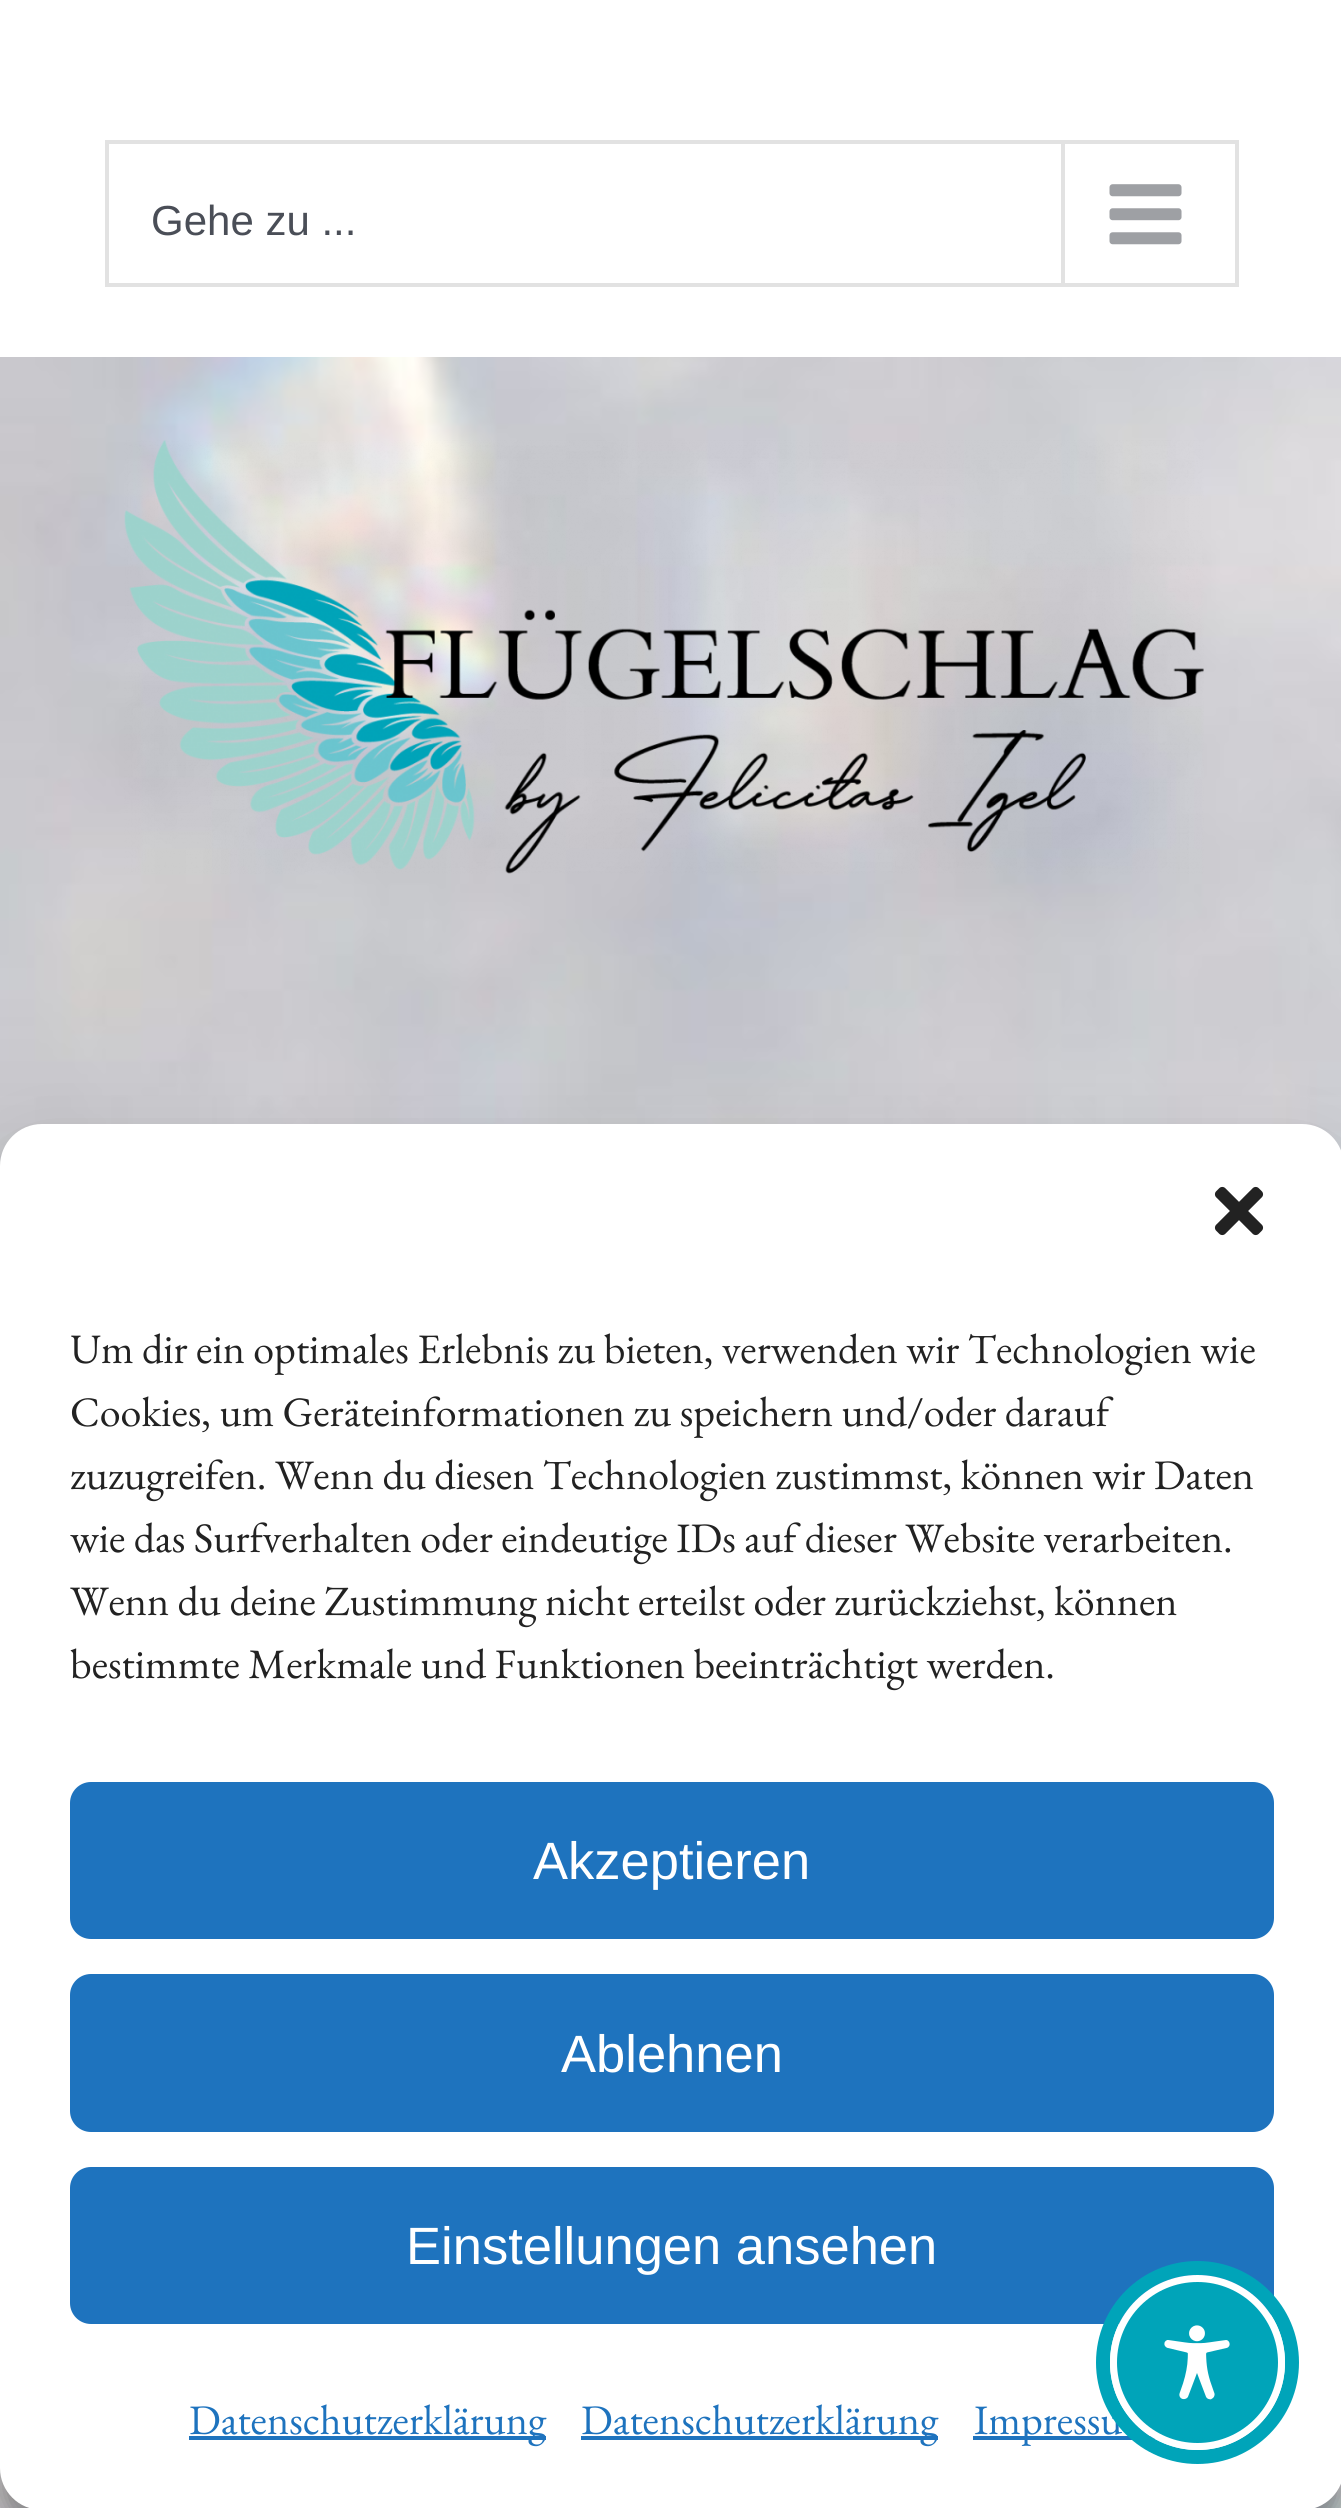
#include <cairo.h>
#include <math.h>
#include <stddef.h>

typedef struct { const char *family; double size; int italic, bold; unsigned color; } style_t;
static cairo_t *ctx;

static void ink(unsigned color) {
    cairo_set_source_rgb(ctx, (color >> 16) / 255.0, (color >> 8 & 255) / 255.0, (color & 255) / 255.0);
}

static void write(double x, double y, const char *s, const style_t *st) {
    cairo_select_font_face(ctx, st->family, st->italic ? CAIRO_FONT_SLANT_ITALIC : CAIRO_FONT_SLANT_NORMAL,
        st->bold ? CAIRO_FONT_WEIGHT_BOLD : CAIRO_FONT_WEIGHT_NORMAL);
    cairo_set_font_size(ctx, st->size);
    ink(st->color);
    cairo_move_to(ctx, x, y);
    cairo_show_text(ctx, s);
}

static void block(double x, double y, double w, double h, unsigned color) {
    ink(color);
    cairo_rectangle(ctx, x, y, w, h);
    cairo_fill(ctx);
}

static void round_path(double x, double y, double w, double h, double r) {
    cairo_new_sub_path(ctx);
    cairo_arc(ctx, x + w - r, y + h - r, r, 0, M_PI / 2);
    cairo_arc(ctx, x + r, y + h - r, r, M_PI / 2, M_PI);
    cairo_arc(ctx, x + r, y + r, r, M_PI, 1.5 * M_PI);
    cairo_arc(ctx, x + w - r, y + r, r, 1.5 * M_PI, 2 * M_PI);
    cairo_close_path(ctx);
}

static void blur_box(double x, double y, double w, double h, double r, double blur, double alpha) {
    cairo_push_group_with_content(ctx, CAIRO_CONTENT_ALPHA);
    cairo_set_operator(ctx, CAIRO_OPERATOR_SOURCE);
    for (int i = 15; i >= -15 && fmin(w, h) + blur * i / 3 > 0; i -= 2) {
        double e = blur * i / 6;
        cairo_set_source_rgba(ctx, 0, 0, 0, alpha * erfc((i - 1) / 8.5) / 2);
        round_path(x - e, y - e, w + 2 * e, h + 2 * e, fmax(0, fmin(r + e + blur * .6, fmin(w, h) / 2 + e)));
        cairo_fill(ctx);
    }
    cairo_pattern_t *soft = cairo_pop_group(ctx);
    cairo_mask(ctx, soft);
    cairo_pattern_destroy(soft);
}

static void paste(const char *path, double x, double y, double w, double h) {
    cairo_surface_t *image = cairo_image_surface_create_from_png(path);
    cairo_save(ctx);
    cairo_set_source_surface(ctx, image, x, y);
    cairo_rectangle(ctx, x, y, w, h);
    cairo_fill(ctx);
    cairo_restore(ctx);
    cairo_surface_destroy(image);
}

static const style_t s1 = {"Liberation Sans", 42, 0, 0, 0x4a4e57};
static const style_t s2 = {"EB Garamond", 42, 0, 0, 0x222222};
static const style_t s3 = {"Liberation Sans", 52.5, 0, 0, 0xffffff};
static const style_t s4 = {"EB Garamond", 42, 0, 0, 0x1e73be};

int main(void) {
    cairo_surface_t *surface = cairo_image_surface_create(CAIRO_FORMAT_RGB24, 1341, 2508);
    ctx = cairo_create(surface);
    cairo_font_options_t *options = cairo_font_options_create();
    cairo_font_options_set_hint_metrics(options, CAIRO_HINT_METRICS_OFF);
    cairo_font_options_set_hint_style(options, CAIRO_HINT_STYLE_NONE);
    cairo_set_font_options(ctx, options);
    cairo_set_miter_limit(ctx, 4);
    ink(0xffffff);
    cairo_paint(ctx);
    paste("pic1.png", 0, 357, 1341, 2151);
    cairo_rectangle(ctx, 107, 142, 1130, 143);
    ink(0xe2e2e2);
    cairo_set_line_width(ctx, 4);
    cairo_stroke(ctx);
    write(151, 235, "Gehe zu ...", &s1);
    block(1061, 144, 4, 140, 0xe2e2e2);
    paste("pic2.png", 1109, 184, 73, 61);
    paste("pic3.png", 124, 440, 1080, 434);
    ink(0x000000);
    blur_box(0, 1145, 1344, 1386, 42, 10.5, 0.23);
    blur_box(0, 1159, 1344, 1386, 42, 35, 0.19);
    ink(0xffffff);
    round_path(0, 1124, 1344, 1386, 42);
    cairo_fill(ctx);
    paste("pic4.png", 1214, 1186, 50, 50);
    write(70, 1363, "Um dir ein optimales Erlebnis zu bieten, verwenden wir Technologien wie", &s2);
    write(70, 1426, "Cookies, um Geräteinformationen zu speichern und/oder darauf", &s2);
    write(70, 1489, "zuzugreifen. Wenn du diesen Technologien zustimmst, können wir Daten", &s2);
    write(70, 1552, "wie das Surfverhalten oder eindeutige IDs auf dieser Website verarbeiten.", &s2);
    write(70, 1615, "Wenn du deine Zustimmung nicht erteilst oder zurückziehst, können", &s2);
    write(70, 1678, "bestimmte Merkmale und Funktionen beeinträchtigt werden.", &s2);
    ink(0x1e73be);
    round_path(72, 1784, 1200, 153, 19);
    cairo_fill_preserve(ctx);
    cairo_stroke(ctx);
    write(533, 1879, "Akzeptieren", &s3);
    ink(0x1e73be);
    round_path(72, 1976, 1200, 154, 19);
    cairo_fill_preserve(ctx);
    cairo_stroke(ctx);
    write(561, 2072, "Ablehnen", &s3);
    ink(0x1e73be);
    round_path(72, 2169, 1200, 153, 19);
    cairo_fill_preserve(ctx);
    cairo_stroke(ctx);
    write(406, 2264, "Einstellungen ansehen", &s3);
    block(189, 2436, 357, 4, 0x1e73be);
    write(189, 2434, "Datenschutzerklärung", &s4);
    block(581, 2436, 357, 4, 0x1e73be);
    write(581, 2434, "Datenschutzerklärung", &s4);
    block(973, 2436, 182, 4, 0x1e73be);
    write(974, 2434, "Impressu", &s4);
    cairo_new_path(ctx);
    cairo_arc(ctx, 1197.5, 2362.5, 94.5, 0, 2 * M_PI);
    ink(0x00a4b9);
    cairo_set_line_width(ctx, 14);
    cairo_stroke(ctx);
    cairo_arc(ctx, 1197.5, 2362.5, 84, 0, 2 * M_PI);
    cairo_fill_preserve(ctx);
    ink(0xffffff);
    cairo_set_line_width(ctx, 7);
    cairo_stroke(ctx);
    paste("pic5.png", 1164, 2325, 66, 75);
    cairo_surface_write_to_png(surface, "screenshot.png");
    cairo_font_options_destroy(options);
    cairo_destroy(ctx);
    cairo_surface_destroy(surface);
    return 0;
}
